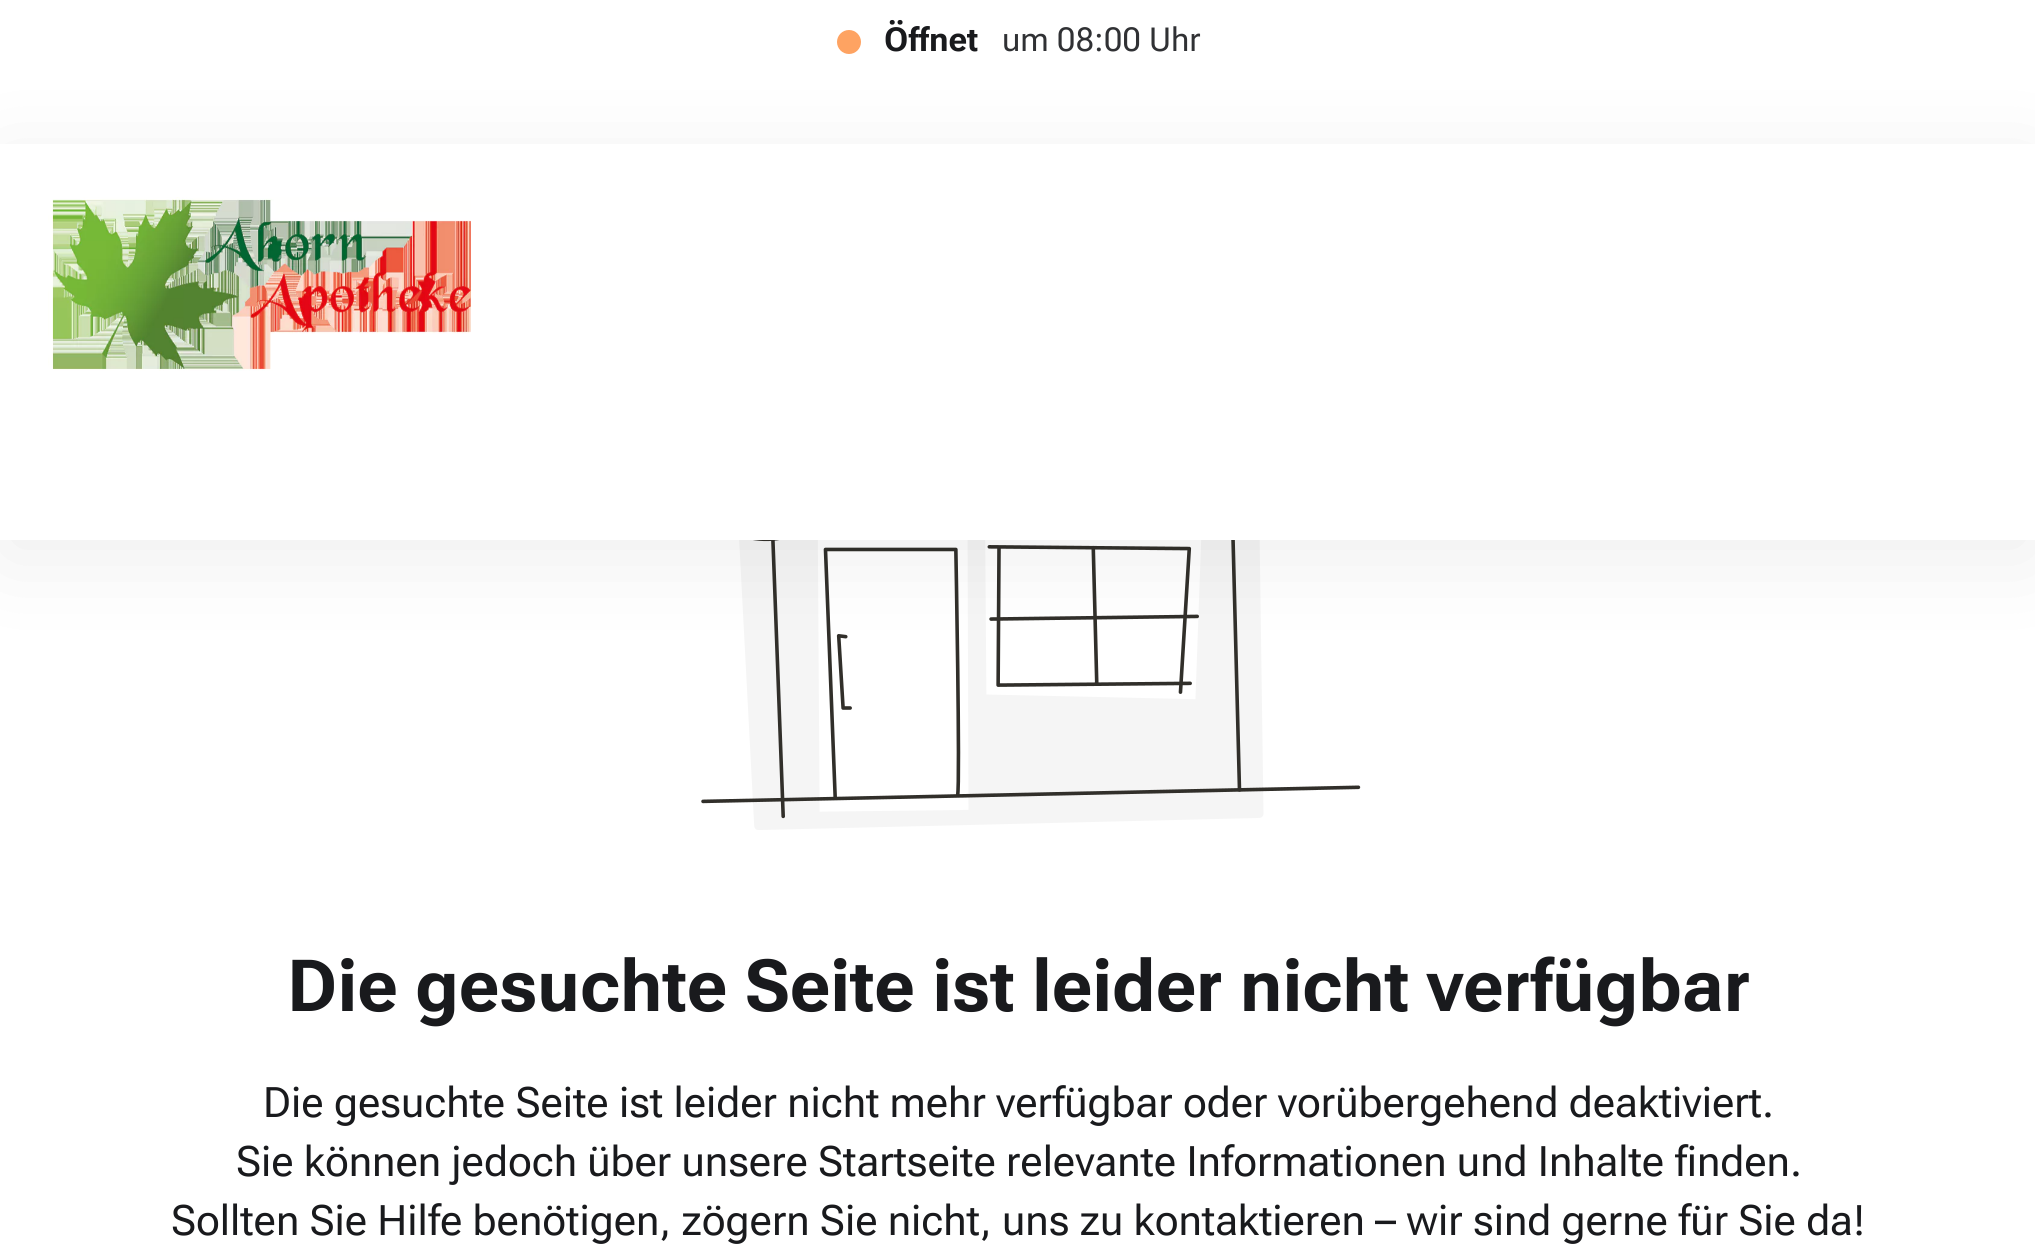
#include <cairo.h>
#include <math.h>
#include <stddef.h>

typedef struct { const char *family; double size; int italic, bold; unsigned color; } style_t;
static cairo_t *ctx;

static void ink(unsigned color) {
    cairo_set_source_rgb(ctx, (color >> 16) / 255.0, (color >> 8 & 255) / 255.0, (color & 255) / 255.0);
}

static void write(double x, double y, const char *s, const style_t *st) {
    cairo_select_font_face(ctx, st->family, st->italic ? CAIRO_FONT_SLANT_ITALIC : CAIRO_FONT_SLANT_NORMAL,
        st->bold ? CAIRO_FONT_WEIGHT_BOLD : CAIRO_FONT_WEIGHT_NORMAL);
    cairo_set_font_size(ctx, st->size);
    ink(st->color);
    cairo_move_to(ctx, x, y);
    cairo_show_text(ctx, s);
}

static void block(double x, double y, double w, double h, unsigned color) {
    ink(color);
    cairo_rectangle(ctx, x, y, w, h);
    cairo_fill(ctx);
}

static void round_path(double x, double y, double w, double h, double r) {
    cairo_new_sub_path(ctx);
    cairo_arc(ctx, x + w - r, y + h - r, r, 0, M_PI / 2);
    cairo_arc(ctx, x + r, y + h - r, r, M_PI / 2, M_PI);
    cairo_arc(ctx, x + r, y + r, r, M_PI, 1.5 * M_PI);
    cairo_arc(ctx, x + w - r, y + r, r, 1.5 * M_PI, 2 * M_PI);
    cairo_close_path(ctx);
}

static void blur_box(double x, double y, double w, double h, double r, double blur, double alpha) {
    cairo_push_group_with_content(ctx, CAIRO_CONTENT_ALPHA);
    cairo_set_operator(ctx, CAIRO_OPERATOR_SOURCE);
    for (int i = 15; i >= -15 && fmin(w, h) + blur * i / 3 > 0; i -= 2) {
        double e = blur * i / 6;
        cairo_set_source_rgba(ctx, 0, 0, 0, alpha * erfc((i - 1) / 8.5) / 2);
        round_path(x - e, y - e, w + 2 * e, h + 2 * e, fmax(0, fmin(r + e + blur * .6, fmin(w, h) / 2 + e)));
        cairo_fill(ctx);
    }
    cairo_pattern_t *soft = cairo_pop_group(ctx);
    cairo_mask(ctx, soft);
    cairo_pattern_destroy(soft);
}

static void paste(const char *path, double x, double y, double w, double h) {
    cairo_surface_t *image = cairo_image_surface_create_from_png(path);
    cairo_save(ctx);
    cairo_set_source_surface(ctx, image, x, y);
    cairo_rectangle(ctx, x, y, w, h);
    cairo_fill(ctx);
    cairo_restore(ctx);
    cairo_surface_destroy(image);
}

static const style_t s1 = {"Roboto Flex", 33, 0, 1, 0x191a1d};
static const style_t s2 = {"Roboto Flex", 33, 0, 0, 0x303134};
static const style_t s3 = {"Roboto Flex", 72, 0, 1, 0x191a1d};
static const style_t s4 = {"Roboto Flex", 42, 0, 0, 0x191a1d};

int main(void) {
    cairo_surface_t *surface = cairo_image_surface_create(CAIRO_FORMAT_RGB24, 2035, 1259);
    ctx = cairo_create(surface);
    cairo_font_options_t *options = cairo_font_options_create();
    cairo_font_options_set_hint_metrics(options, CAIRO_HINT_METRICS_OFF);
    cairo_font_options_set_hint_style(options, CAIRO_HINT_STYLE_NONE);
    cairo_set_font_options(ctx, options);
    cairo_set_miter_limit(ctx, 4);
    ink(0xffffff);
    cairo_paint(ctx);
    paste("pic2.png", 701, 540, 660, 290);
    ink(0x000000);
    blur_box(0, 162, 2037, 396, 0, 48, 0.07);
    block(0, 144, 2035, 396, 0xffffff);
    paste("pic1.png", 48, 197, 423, 174);
    ink(0xfea362);
    cairo_arc(ctx, 849, 42, 12, 0, 2 * M_PI);
    cairo_fill(ctx);
    write(884, 51, "Öffnet", &s1);
    write(1002, 51, "um 08:00 Uhr", &s2);
    write(287, 1011, "Die gesuchte Seite ist leider nicht verfügbar", &s3);
    write(263, 1117, "Die gesuchte Seite ist leider nicht mehr verfügbar oder vorübergehend deaktiviert.", &s4);
    write(236, 1176, "Sie können jedoch über unsere Startseite relevante Informationen und Inhalte finden.", &s4);
    write(171, 1235, "Sollten Sie Hilfe benötigen, zögern Sie nicht, uns zu kontaktieren – wir sind gerne für Sie da!", &s4);
    cairo_surface_write_to_png(surface, "screenshot.png");
    cairo_font_options_destroy(options);
    cairo_destroy(ctx);
    cairo_surface_destroy(surface);
    return 0;
}
